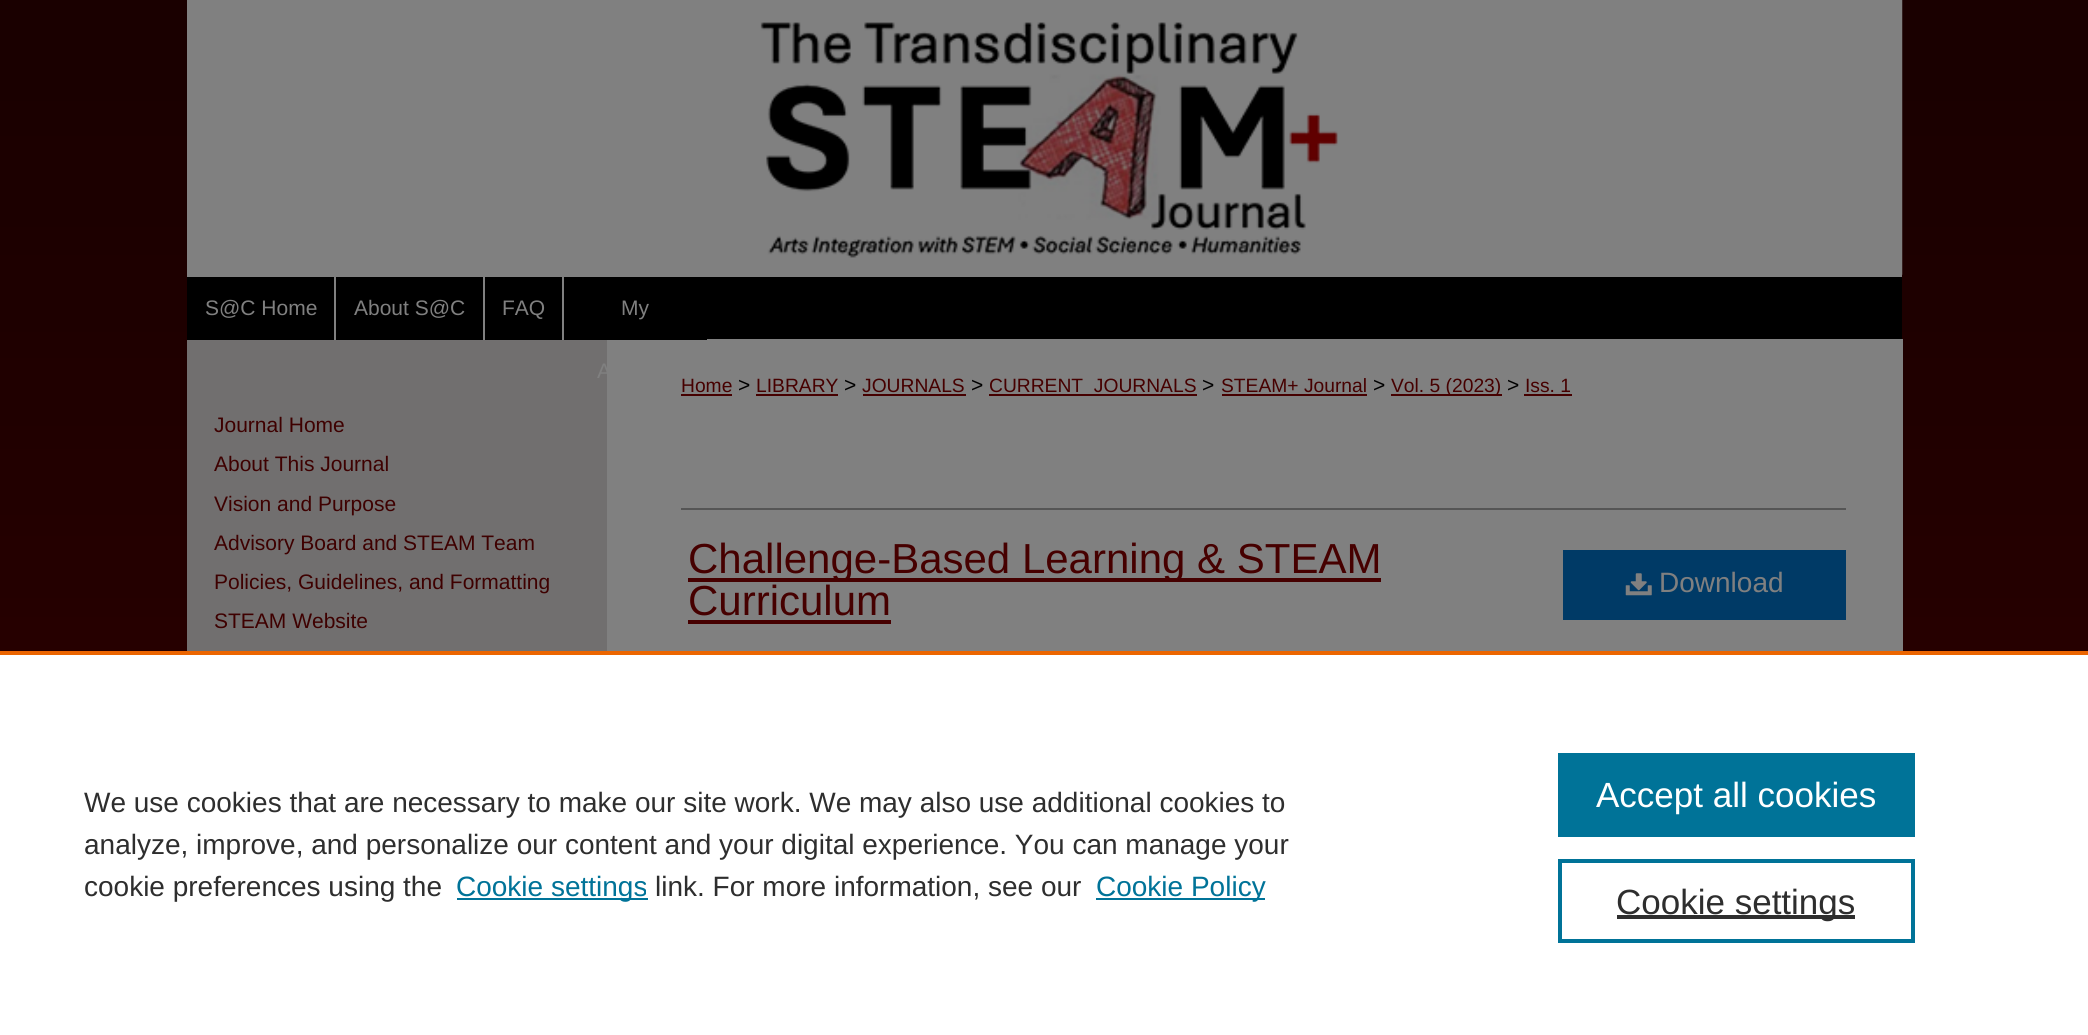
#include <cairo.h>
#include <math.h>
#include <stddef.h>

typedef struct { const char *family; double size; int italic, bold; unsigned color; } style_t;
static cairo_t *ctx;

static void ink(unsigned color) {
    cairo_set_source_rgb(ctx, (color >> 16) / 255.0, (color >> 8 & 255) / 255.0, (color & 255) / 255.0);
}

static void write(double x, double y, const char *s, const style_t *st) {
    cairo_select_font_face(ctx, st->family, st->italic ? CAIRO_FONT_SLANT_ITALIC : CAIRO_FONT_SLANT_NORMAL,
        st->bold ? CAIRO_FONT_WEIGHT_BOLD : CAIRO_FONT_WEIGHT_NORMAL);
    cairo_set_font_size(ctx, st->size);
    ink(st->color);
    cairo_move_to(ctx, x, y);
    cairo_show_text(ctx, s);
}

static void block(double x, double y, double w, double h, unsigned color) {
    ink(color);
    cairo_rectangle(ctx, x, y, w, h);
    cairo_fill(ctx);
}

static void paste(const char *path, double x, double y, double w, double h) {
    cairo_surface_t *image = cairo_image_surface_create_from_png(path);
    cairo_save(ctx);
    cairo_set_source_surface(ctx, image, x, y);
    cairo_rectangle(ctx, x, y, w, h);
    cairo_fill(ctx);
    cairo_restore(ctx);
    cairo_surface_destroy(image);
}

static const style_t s1 = {"Liberation Sans", 21, 0, 0, 0x808080};
static const style_t s2 = {"Liberation Sans", 21, 0, 0, 0x3e0000};
static const style_t s3 = {"Liberation Sans", 19.25, 0, 0, 0x460000};
static const style_t s4 = {"Liberation Sans", 21, 0, 0, 0x000000};
static const style_t s5 = {"Liberation Sans", 42, 0, 0, 0x460000};
static const style_t s6 = {"Liberation Sans", 28, 0, 0, 0x808080};
static const style_t s7 = {"Liberation Sans", 28, 0, 0, 0x2e2e2e};
static const style_t s8 = {"Liberation Sans", 28, 0, 0, 0x007398};
static const style_t s9 = {"Liberation Sans", 35, 0, 0, 0xffffff};
static const style_t s10 = {"Liberation Sans", 35, 0, 0, 0x2e2e2e};

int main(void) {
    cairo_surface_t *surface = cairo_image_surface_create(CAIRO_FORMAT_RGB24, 2088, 1035);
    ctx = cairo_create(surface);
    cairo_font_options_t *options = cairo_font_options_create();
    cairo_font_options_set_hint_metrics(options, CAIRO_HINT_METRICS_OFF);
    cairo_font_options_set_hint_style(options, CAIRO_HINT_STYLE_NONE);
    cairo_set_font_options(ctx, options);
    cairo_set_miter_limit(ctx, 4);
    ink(0xffffff);
    cairo_paint(ctx);
    paste("pic1.png", 0, 0, 2088, 651);
    block(187, 0, 1715, 277, 0x808080);
    paste("pic2.png", 760, 0, 1143, 275);
    block(187, 277, 1715, 63, 0x000000);
    block(334, 277, 2, 63, 0x808080);
    write(205, 315, "S@C Home", &s1);
    block(483, 277, 2, 63, 0x808080);
    write(354, 315, "About S@C", &s1);
    block(562, 277, 2, 63, 0x808080);
    write(502, 315, "FAQ", &s1);
    block(607, 339, 1296, 312, 0x808080);
    block(607, 339, 100, 1, 0x000000);
    write(621, 315, "My", &s1);
    block(187, 340, 420, 311, 0x716f6f);
    write(597, 378, "A", &s1);
    write(214, 432, "Journal Home", &s2);
    write(214, 471, "About This Journal", &s2);
    write(214, 511, "Vision and Purpose", &s2);
    write(214, 550, "Advisory Board and STEAM Team", &s2);
    write(214, 589, "Policies, Guidelines, and Formatting", &s2);
    write(214, 628, "STEAM Website", &s2);
    write(681, 392, "Home", &s3);
    block(681, 394, 51, 2, 0x460000);
    write(738, 392, ">", &s4);
    write(756, 392, "LIBRARY", &s3);
    block(756, 394, 82, 2, 0x460000);
    write(844, 392, ">", &s4);
    write(862, 392, "JOURNALS", &s3);
    block(863, 394, 103, 2, 0x460000);
    write(971, 392, ">", &s4);
    block(989, 394, 208, 2, 0x460000);
    write(989, 392, "CURRENT_JOURNALS", &s3);
    write(1202, 392, ">", &s4);
    write(1221, 392, "STEAM+ Journal", &s3);
    block(1222, 394, 145, 2, 0x460000);
    write(1373, 392, ">", &s4);
    block(1391, 394, 111, 2, 0x460000);
    write(1391, 392, "Vol. 5 (2023)", &s3);
    write(1507, 392, ">", &s4);
    write(1525, 392, "Iss. 1", &s3);
    block(1524, 394, 48, 2, 0x460000);
    block(681, 508, 1165, 2, 0x555555);
    block(688, 578, 693, 4, 0x460000);
    write(688, 573, "Challenge-Based Learning & STEAM", &s5);
    write(688, 615, "Curriculum", &s5);
    block(688, 620, 203, 4, 0x460000);
    block(1563, 550, 283, 70, 0x003a66);
    paste("pic3.png", 1625, 573, 27, 23);
    write(1659, 592, "Download", &s6);
    block(0, 651, 2088, 4, 0xeb6500);
    write(84, 812, "We use cookies that are necessary to make our site work. We may also use additional cookies to", &s7);
    write(84, 854, "analyze, improve, and personalize our content and your digital experience. You can manage your", &s7);
    write(84, 896, "cookie preferences using the", &s7);
    block(457, 898, 191, 2, 0x007398);
    write(456, 896, "Cookie settings", &s8);
    write(655, 896, "link. For more information, see our", &s7);
    block(1096, 898, 169, 2, 0x007398);
    write(1096, 896, "Cookie Policy", &s8);
    block(1558, 753, 357, 84, 0x007398);
    write(1596, 807, "Accept all cookies", &s9);
    cairo_rectangle(ctx, 1560, 861, 353, 80);
    ink(0x007398);
    cairo_set_line_width(ctx, 4);
    cairo_stroke(ctx);
    block(1617, 915, 238, 4, 0x2e2e2e);
    write(1616, 914, "Cookie settings", &s10);
    cairo_surface_write_to_png(surface, "screenshot.png");
    cairo_font_options_destroy(options);
    cairo_destroy(ctx);
    cairo_surface_destroy(surface);
    return 0;
}
